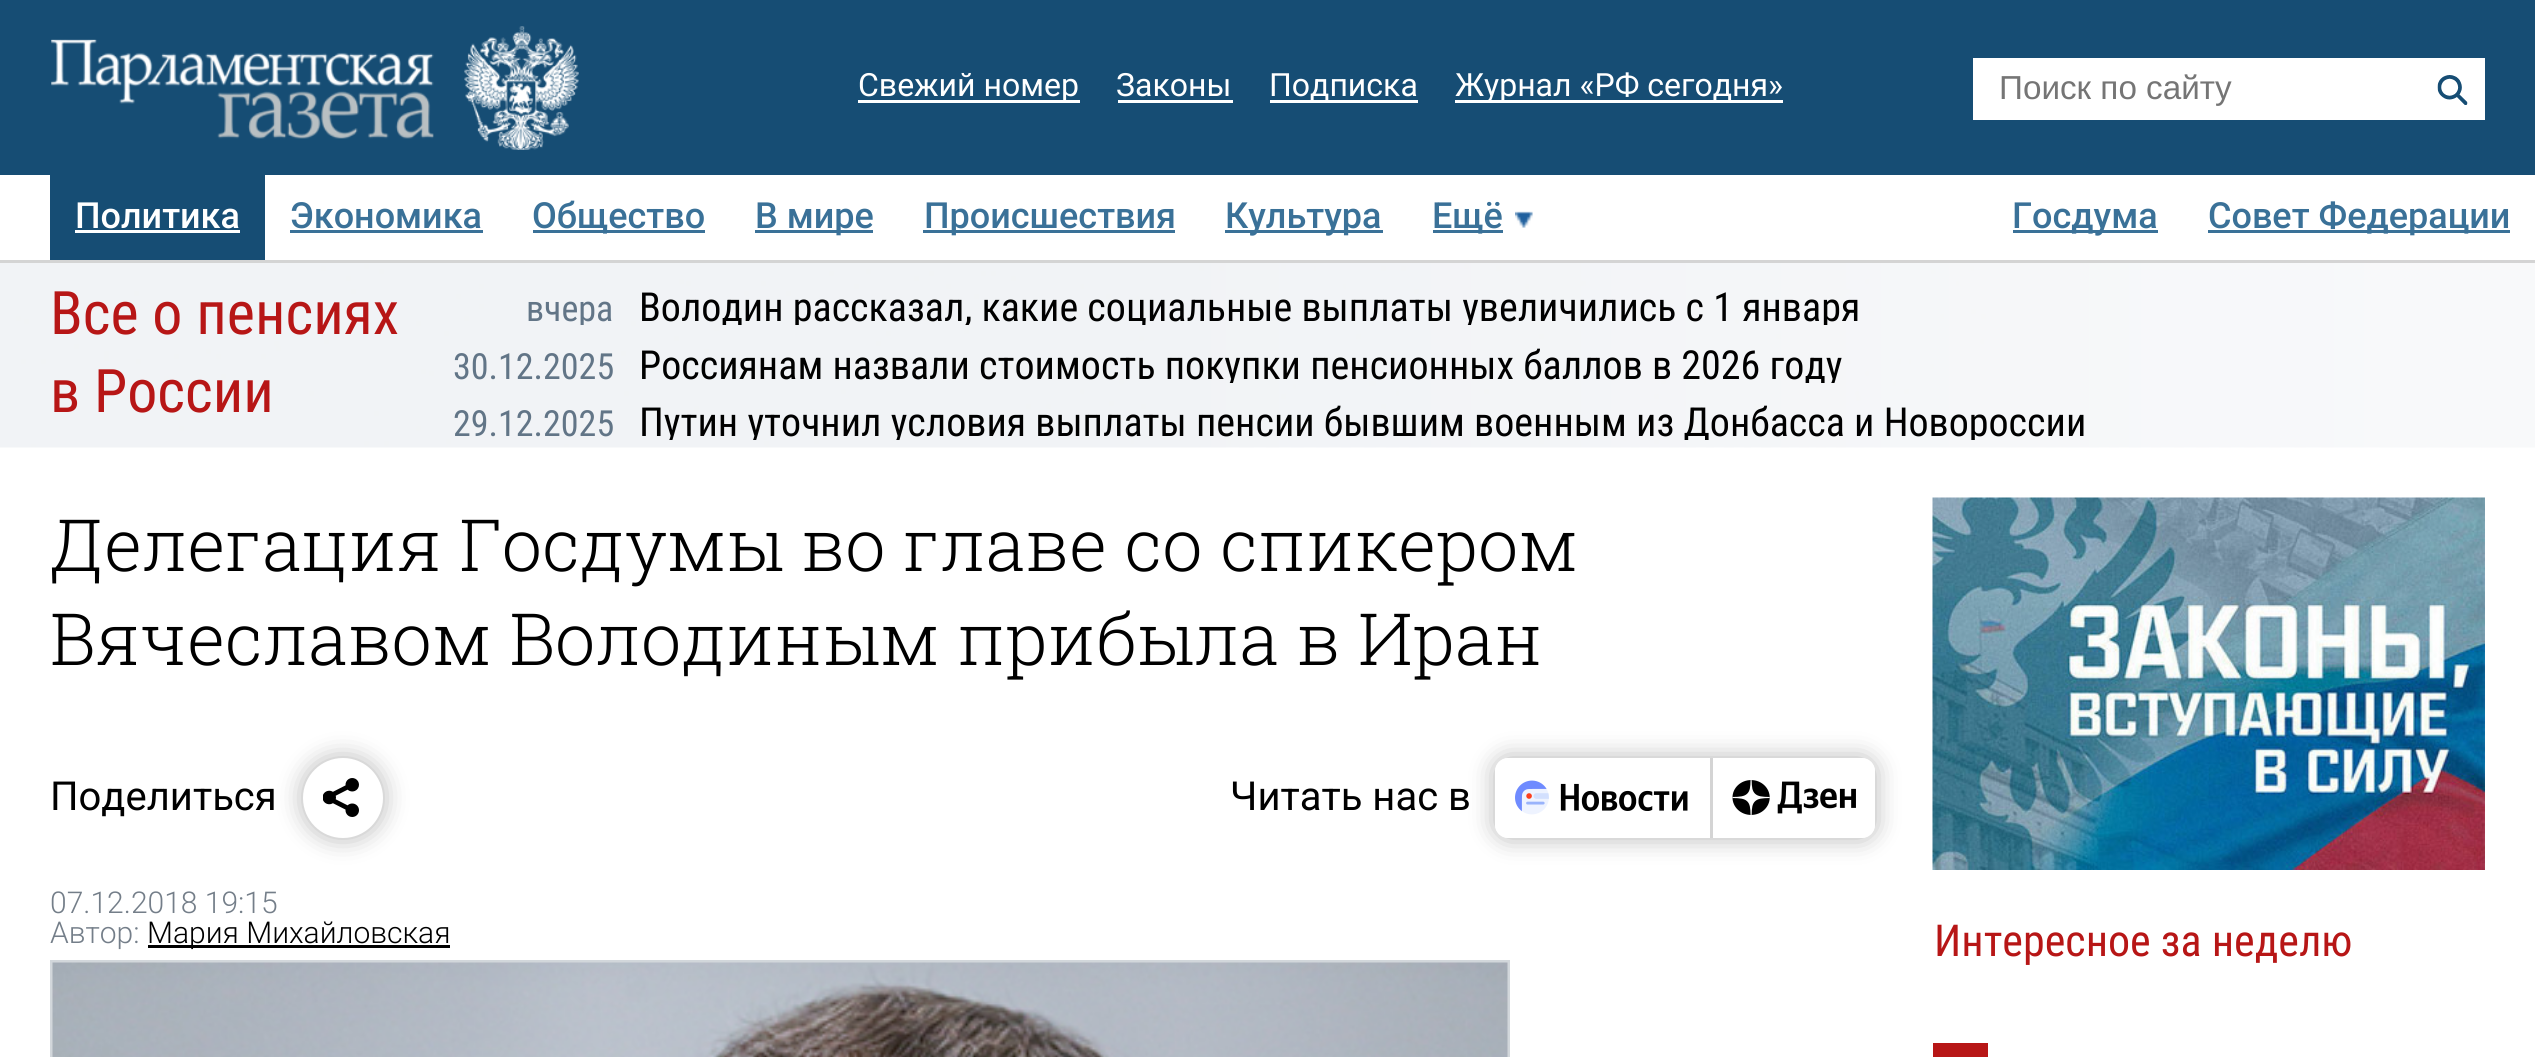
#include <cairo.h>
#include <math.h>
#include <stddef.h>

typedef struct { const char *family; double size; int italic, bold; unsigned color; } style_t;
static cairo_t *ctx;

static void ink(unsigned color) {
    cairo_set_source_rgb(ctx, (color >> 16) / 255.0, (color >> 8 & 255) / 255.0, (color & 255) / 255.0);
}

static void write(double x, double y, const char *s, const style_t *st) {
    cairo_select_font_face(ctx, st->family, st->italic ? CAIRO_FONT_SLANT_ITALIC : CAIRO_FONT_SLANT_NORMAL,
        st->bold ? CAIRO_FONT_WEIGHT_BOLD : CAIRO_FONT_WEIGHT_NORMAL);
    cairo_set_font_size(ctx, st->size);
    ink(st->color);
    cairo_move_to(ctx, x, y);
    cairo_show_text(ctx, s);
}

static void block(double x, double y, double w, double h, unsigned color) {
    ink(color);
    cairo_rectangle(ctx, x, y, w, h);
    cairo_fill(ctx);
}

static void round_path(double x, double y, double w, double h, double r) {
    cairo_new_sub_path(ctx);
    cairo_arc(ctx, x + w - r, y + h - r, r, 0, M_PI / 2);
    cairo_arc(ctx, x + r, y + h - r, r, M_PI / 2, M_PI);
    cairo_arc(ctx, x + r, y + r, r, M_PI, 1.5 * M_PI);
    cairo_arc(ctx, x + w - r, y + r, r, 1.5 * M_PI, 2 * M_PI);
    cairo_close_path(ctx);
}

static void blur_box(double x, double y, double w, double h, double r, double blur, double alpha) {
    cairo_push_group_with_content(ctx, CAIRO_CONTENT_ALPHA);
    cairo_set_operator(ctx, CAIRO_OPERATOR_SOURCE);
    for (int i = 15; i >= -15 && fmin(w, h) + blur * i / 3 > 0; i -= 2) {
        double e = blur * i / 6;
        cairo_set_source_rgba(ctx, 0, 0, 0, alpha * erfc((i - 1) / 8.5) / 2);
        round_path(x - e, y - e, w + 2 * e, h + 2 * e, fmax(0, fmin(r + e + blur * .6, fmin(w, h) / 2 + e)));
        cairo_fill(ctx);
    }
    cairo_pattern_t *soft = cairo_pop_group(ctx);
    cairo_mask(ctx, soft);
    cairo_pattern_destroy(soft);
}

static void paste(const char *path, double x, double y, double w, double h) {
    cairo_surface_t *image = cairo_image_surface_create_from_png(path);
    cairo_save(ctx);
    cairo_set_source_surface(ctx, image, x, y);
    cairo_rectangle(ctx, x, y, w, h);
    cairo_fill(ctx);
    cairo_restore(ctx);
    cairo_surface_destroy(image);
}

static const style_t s1 = {"Roboto", 32, 0, 0, 0xffffff};
static const style_t s2 = {"Liberation Sans", 33.25, 0, 0, 0x757575};
static const style_t s3 = {"Roboto Medium", 36, 0, 0, 0xffffff};
static const style_t s4 = {"Roboto Medium", 36, 0, 0, 0x3a7198};
static const style_t s5 = {"Roboto Condensed", 60, 0, 0, 0xb71616};
static const style_t s6 = {"Roboto Condensed", 36, 0, 0, 0x627587};
static const style_t s7 = {"Roboto Condensed", 40, 0, 0, 0x000000};
static const style_t s8 = {"Roboto Slab Light", 72, 0, 0, 0x000000};
static const style_t s9 = {"Roboto", 40, 0, 0, 0x000000};
static const style_t s10 = {"Roboto Light", 30, 0, 0, 0x747e89};
static const style_t s11 = {"Roboto Light", 30, 0, 0, 0x000000};
static const style_t s12 = {"Roboto Condensed", 44, 0, 0, 0xb71616};

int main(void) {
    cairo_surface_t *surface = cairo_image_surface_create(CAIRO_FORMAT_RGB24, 2535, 1057);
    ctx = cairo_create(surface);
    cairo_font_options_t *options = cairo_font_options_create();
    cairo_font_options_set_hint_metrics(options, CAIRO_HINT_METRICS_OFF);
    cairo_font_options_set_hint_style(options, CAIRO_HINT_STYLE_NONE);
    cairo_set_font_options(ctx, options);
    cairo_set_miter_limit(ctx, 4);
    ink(0xffffff);
    cairo_paint(ctx);
    block(0, 0, 2535, 175, 0x164d74);
    paste("pic1.png", 51, 26, 528, 124);
    block(858, 100, 222, 3, 0xffffff);
    write(858, 96, "Свежий номер", &s1);
    write(1116, 96, "Законы", &s1);
    block(1118, 100, 115, 3, 0xffffff);
    block(1270, 100, 148, 3, 0xffffff);
    write(1269, 96, "Подписка", &s1);
    block(1455, 100, 328, 3, 0xffffff);
    write(1455, 96, "Журнал «РФ сегодня»", &s1);
    block(1973, 58, 512, 62, 0xffffff);
    write(1999, 99, "Поиск по сайту", &s2);
    paste("pic2.png", 2437, 75, 31, 30);
    block(50, 175, 215, 85, 0x164d74);
    write(75, 228, "Политика", &s3);
    block(75, 230, 165, 3, 0xffffff);
    write(290, 228, "Экономика", &s4);
    block(290, 230, 193, 3, 0x3a7198);
    block(533, 230, 172, 3, 0x3a7198);
    write(532, 228, "Общество", &s4);
    block(755, 230, 118, 3, 0x3a7198);
    write(755, 228, "В мире", &s4);
    block(923, 230, 252, 3, 0x3a7198);
    write(924, 228, "Происшествия", &s4);
    block(1225, 230, 158, 3, 0x3a7198);
    write(1225, 228, "Культура", &s4);
    paste("pic3.png", 1515, 211, 18, 17);
    block(1433, 230, 70, 3, 0x3a7198);
    write(1432, 228, "Ещё", &s4);
    block(2013, 230, 145, 3, 0x3a7198);
    write(2012, 228, "Госдума", &s4);
    block(2208, 230, 302, 3, 0x3a7198);
    write(2208, 228, "Совет Федерации", &s4);
    block(0, 260, 2535, 3, 0xd4d4d4);
    paste("pic4.png", 0, 263, 2535, 185);
    write(50, 334, "Все о пенсиях", &s5);
    write(50, 412, "в России", &s5);
    cairo_save(ctx);
    cairo_rectangle(ctx, 413, 275, 2122, 50);
    cairo_clip(ctx);
    write(526, 321, "вчера", &s6);
    write(639, 321, "Володин рассказал, какие социальные выплаты увеличились с 1 января", &s7);
    cairo_restore(ctx);
    write(453, 379, "30.12.2025", &s6);
    cairo_save(ctx);
    cairo_rectangle(ctx, 413, 333, 2122, 50);
    cairo_clip(ctx);
    write(639, 379, "Россиянам назвали стоимость покупки пенсионных баллов в 2026 году", &s7);
    cairo_restore(ctx);
    write(453, 436, "29.12.2025", &s6);
    cairo_save(ctx);
    cairo_rectangle(ctx, 413, 390, 2122, 50);
    cairo_clip(ctx);
    write(639, 436, "Путин уточнил условия выплаты пенсии бывшим военным из Донбасса и Новороссии", &s7);
    cairo_restore(ctx);
    write(50, 571, "Делегация Госдумы во главе со спикером", &s8);
    write(50, 665, "Вячеславом Володиным прибыла в Иран", &s8);
    write(50, 810, "Поделиться", &s9);
    ink(0x000000);
    blur_box(303, 758, 80, 80, 40, 12.5, 0.3);
    ink(0xffffff);
    cairo_arc(ctx, 343, 798, 40, 0, 2 * M_PI);
    cairo_fill(ctx);
    paste("pic5.png", 323, 778, 36, 39);
    write(1230, 810, "Читать нас в", &s9);
    cairo_save(ctx);
    cairo_set_fill_rule(ctx, CAIRO_FILL_RULE_EVEN_ODD);
    cairo_new_path(ctx);
    cairo_move_to(ctx, 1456, 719);
    cairo_line_to(ctx, 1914, 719);
    cairo_line_to(ctx, 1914, 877);
    cairo_line_to(ctx, 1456, 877);
    cairo_close_path(ctx);
    cairo_move_to(ctx, 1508, 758);
    cairo_line_to(ctx, 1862, 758);
    cairo_curve_to(ctx, 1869, 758, 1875, 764, 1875, 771);
    cairo_line_to(ctx, 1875, 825);
    cairo_curve_to(ctx, 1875, 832, 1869, 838, 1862, 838);
    cairo_line_to(ctx, 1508, 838);
    cairo_curve_to(ctx, 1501, 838, 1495, 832, 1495, 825);
    cairo_line_to(ctx, 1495, 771);
    cairo_curve_to(ctx, 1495, 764, 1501, 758, 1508, 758);
    cairo_close_path(ctx);
    cairo_clip(ctx);
    ink(0x000000);
    blur_box(1495, 758, 380, 80, 13, 12.5, 0.3);
    cairo_restore(ctx);
    paste("pic6.png", 1515, 780, 173, 35);
    block(1710, 758, 3, 80, 0xd4d4d4);
    paste("pic7.png", 1732, 780, 124, 35);
    write(50, 913, "07.12.2018 19:15", &s10);
    write(50, 943, "Автор:", &s10);
    block(148, 945, 302, 3, 0x000000);
    write(147, 943, "Мария Михайловская", &s11);
    cairo_rectangle(ctx, 51.5, 961.5, 1457, 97);
    ink(0xd2d7db);
    cairo_set_line_width(ctx, 3);
    cairo_stroke(ctx);
    paste("pic8.png", 52, 962, 1456, 95);
    paste("pic9.png", 1932, 497, 553, 373);
    write(1934, 956, "Интересное за неделю", &s12);
    block(1933, 1043, 55, 14, 0xb71616);
    cairo_surface_write_to_png(surface, "screenshot.png");
    cairo_font_options_destroy(options);
    cairo_destroy(ctx);
    cairo_surface_destroy(surface);
    return 0;
}
